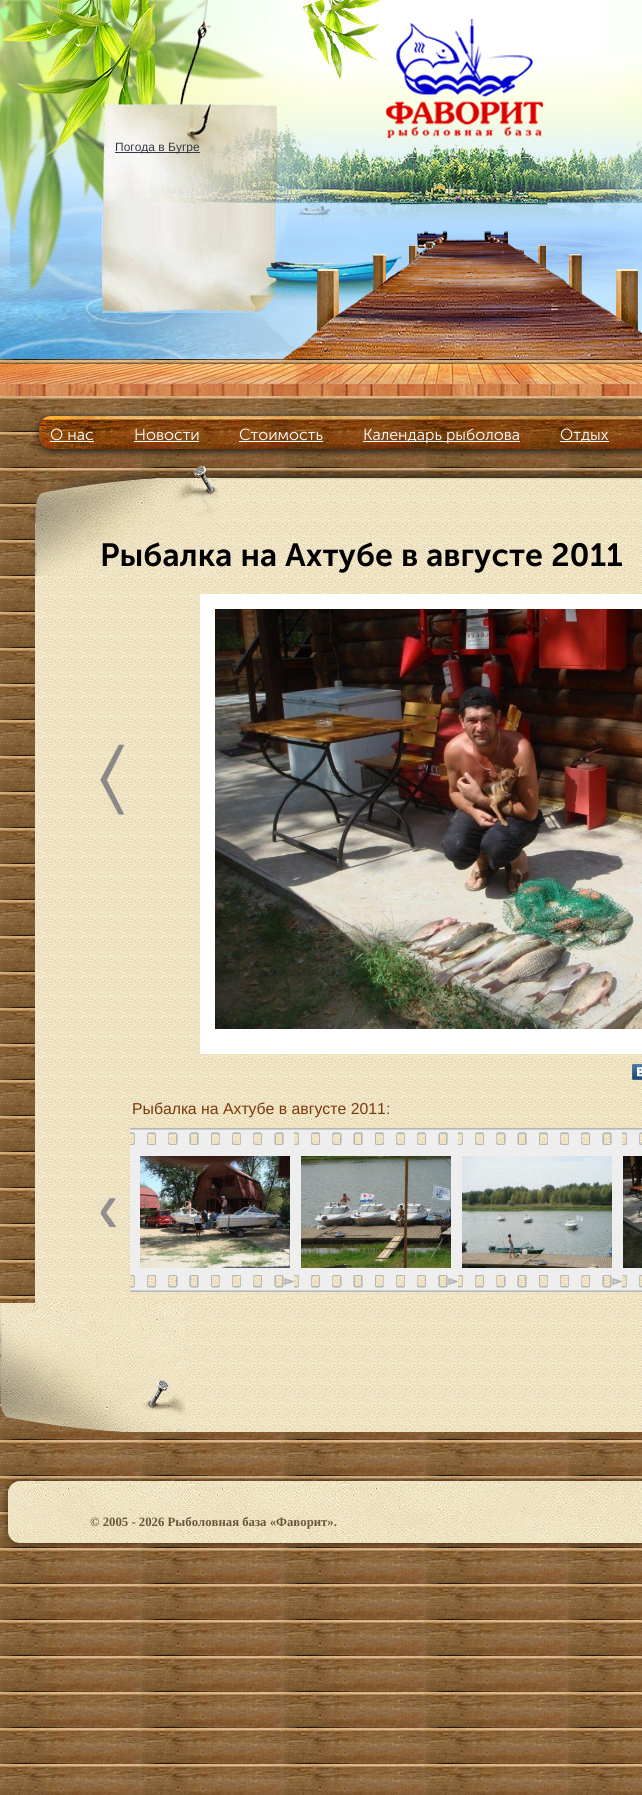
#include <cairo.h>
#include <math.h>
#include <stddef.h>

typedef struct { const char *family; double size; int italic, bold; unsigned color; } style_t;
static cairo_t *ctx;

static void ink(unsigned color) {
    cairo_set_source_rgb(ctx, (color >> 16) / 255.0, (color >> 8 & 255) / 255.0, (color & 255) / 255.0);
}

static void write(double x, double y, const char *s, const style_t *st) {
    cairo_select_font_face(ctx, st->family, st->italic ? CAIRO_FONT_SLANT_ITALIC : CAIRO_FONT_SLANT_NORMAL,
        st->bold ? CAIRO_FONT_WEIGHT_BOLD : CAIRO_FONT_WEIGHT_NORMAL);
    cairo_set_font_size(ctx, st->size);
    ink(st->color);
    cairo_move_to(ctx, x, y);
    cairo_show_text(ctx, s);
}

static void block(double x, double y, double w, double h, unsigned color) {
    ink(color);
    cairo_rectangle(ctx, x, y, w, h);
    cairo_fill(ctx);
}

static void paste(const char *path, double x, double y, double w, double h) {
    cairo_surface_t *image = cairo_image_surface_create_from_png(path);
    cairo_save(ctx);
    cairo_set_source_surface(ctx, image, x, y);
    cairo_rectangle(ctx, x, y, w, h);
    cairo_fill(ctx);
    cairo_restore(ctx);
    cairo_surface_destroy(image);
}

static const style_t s1 = {"Liberation Sans", 12, 0, 0, 0x363945};
static const style_t s2 = {"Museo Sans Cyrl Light", 16, 0, 0, 0xffffff};
static const style_t s3 = {"Museo Sans Cyrl SemiBold", 32, 0, 0, 0x000000};
static const style_t s4 = {"Liberation Sans", 15.8, 0, 0, 0x793a0b};
static const style_t s5 = {"Liberation Sans", 15.8, 0, 0, 0x555555};
static const style_t s6 = {"Liberation Serif", 12.75, 0, 1, 0x6b553b};

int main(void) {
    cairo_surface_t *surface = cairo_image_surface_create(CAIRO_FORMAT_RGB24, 642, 1795);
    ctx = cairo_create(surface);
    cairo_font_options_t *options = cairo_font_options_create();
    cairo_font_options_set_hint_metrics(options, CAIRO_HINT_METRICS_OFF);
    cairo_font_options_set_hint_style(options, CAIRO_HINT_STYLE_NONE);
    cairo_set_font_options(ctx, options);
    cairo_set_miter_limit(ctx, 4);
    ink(0xffffff);
    cairo_paint(ctx);
    paste("pic1.png", 0, 359, 642, 1436);
    paste("pic2.png", 380, 0, 205, 297);
    paste("pic3.png", 0, 0, 380, 359);
    paste("pic4.png", 585, 0, 57, 333);
    paste("pic5.png", 150, 19, 492, 340);
    block(115, 152, 85, 1, 0x363945);
    write(115, 151, "Погода в Бугре", &s1);
    paste("pic6.png", 0, 364, 642, 32);
    paste("pic7.png", 32, 410, 610, 49);
    write(50, 440, "О нас", &s2);
    block(50, 441, 44, 1, 0xffffff);
    write(134, 440, "Новости", &s2);
    block(134, 441, 65, 1, 0xffffff);
    write(239, 440, "Стоимость", &s2);
    block(239, 441, 84, 1, 0xffffff);
    block(363, 441, 157, 1, 0xffffff);
    write(363, 440, "Календарь рыболова", &s2);
    block(560, 441, 49, 1, 0xffffff);
    write(560, 440, "Отдых", &s2);
    paste("pic8.png", 35, 523, 607, 53);
    paste("pic9.png", 35, 466, 183, 110);
    paste("pic10.png", 218, 465, 424, 15);
    paste("pic11.png", 218, 480, 424, 61);
    paste("pic12.png", 35, 576, 607, 727);
    write(100, 566, "Рыбалка на Ахтубе в августе 2011", &s3);
    paste("pic13.png", 100, 744, 24, 71);
    block(200, 594, 442, 460, 0xffffff);
    paste("pic14.png", 215, 609, 427, 420);
    paste("pic15.png", 632, 1064, 10, 16);
    write(132, 1114, "Рыбалка на Ахтубе в августе 2011", &s4);
    write(386, 1114, ":", &s5);
    paste("pic16.png", 100, 1198, 16, 29);
    paste("pic17.png", 130, 1128, 512, 164);
    paste("pic18.png", 140, 1156, 150, 112);
    paste("pic19.png", 301, 1156, 150, 112);
    paste("pic20.png", 462, 1156, 150, 112);
    paste("pic21.png", 623, 1156, 19, 112);
    paste("pic22.png", 0, 1303, 185, 129);
    paste("pic23.png", 185, 1303, 457, 129);
    paste("pic24.png", 1, 1475, 641, 75);
    write(90, 1526, "© 2005 - 2026 Рыболовная база «Фаворит».", &s6);
    cairo_surface_write_to_png(surface, "screenshot.png");
    cairo_font_options_destroy(options);
    cairo_destroy(ctx);
    cairo_surface_destroy(surface);
    return 0;
}
